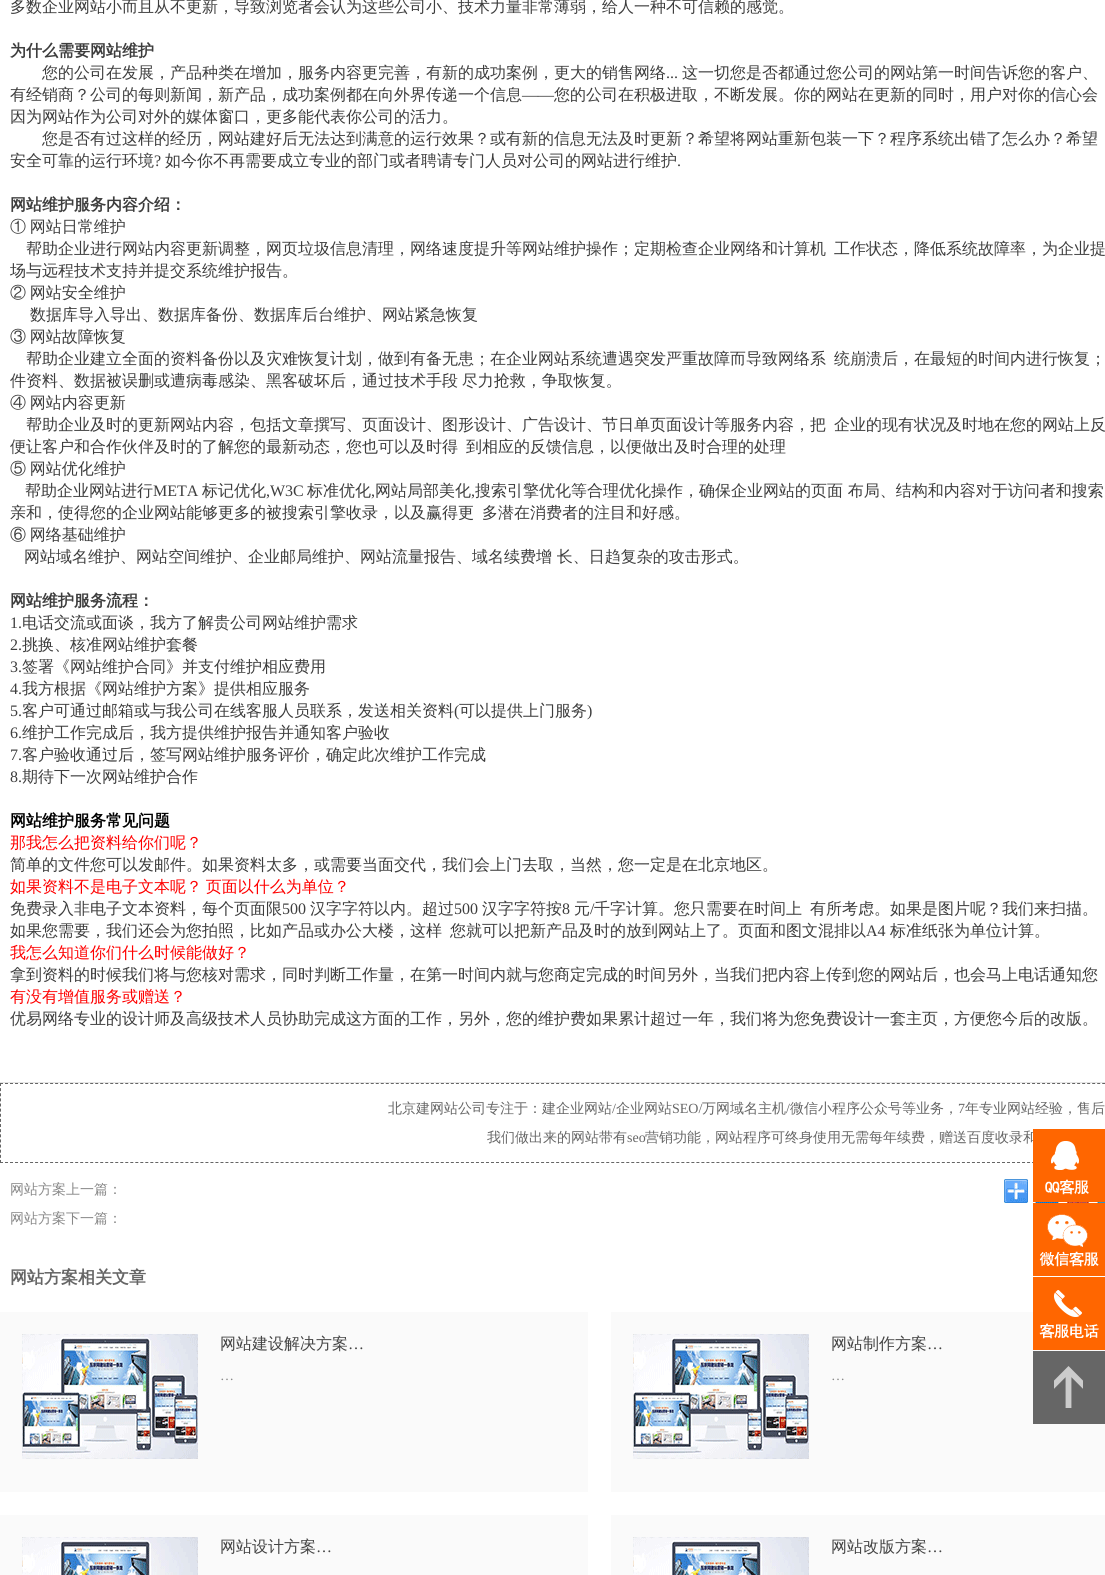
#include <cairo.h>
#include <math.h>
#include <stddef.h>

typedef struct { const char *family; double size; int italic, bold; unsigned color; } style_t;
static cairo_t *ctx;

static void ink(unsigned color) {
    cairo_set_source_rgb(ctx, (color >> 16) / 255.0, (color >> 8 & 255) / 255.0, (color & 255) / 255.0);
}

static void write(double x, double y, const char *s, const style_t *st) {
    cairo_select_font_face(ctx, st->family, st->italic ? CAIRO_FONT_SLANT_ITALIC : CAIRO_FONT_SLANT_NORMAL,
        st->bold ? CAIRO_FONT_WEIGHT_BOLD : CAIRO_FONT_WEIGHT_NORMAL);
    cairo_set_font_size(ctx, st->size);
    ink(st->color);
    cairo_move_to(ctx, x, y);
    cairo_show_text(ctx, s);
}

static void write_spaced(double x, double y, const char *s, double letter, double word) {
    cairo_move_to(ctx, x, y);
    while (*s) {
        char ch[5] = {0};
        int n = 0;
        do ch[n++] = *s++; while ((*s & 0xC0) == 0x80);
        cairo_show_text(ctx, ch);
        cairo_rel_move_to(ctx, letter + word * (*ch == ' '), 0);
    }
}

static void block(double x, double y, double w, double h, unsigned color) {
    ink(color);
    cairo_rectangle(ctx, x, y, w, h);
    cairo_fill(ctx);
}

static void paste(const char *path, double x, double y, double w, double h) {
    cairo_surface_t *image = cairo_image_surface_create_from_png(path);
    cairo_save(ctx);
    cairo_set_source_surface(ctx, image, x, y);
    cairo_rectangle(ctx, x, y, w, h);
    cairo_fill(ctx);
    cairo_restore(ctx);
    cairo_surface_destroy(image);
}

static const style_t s1 = {"WenQuanYi Zen Hei Medium", 16, 0, 0, 0x3d3d3d};
static const style_t s2 = {"WenQuanYi Zen Hei", 16, 0, 1, 0x3d3d3d};
static const style_t s3 = {"Liberation Serif", 16, 0, 0, 0x3d3d3d};
static const style_t s4 = {"WenQuanYi Zen Hei", 16, 0, 1, 0x000000};
static const style_t s5 = {"WenQuanYi Zen Hei Medium", 16, 0, 0, 0xff0000};
static const style_t s6 = {"WenQuanYi Zen Hei Medium", 14, 0, 0, 0x666666};
static const style_t s7 = {"Liberation Serif", 14, 0, 0, 0x666666};
static const style_t s8 = {"WenQuanYi Zen Hei Medium", 14, 0, 0, 0x888888};
static const style_t s9 = {"WenQuanYi Zen Hei", 17, 0, 1, 0x666666};
static const style_t s10 = {"WenQuanYi Zen Hei Medium", 16, 0, 0, 0x444444};
static const style_t s11 = {"Liberation Serif", 16, 0, 0, 0x444444};
static const style_t s12 = {"Liberation Serif", 14, 0, 0, 0x888888};

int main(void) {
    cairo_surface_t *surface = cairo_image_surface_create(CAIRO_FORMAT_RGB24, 1105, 1575);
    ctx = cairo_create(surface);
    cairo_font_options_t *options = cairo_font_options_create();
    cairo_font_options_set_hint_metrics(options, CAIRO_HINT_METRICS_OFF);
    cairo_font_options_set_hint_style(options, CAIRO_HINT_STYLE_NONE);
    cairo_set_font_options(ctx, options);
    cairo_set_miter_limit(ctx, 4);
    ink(0xffffff);
    cairo_paint(ctx);
    block(0, 1082, 1105, 1, 0xe4e4e4);
    write(10, 12, "多数企业网站小而且从不更新，导致浏览者会认为这些公司小、技术力量非常薄弱，给人一种不可信赖的感觉。", &s1);
    write(10, 56, "为什么需要网站维护", &s2);
    write(42, 78, "您的公司在发展，产品种类在增加，服务内容更完善，有新的成功案例，更大的销售网络", &s1);
    write(666, 78, "...", &s3);
    write(682, 78, "这一切您是否都通过您公司的网站第一时间告诉您的客户、", &s1);
    write(10, 100, "有经销商？公司的每则新闻，新产品，成功案例都在向外界传递一个信息", &s1);
    write(522, 100, "——", &s3);
    write(554, 100, "您的公司在积极进取，不断发展。你的网站在更新的同时，用户对你的信心会", &s1);
    write(10, 122, "因为网站作为公司对外的媒体窗口，更多能代表你公司的活力。", &s1);
    write(42, 144, "您是否有过这样的经历，网站建好后无法达到满意的运行效果？或有新的信息无法及时更新？希望将网站重新包装一下？程序系统出错了怎么办？希望", &s1);
    write(10, 166, "安全可靠的运行环境", &s1);
    write(154, 166, "?", &s3);
    write(165, 166, "如今你不再需要成立专业的部门或者聘请专门人员对公司的网站进行维护", &s1);
    write(677, 166, ".", &s3);
    write(10, 210, "网站维护服务内容介绍：", &s2);
    cairo_select_font_face(ctx, "WenQuanYi Zen Hei Medium", CAIRO_FONT_SLANT_NORMAL, CAIRO_FONT_WEIGHT_NORMAL);
    write_spaced(10, 232, "① 网站日常维护", 0, -1);
    write(26, 254, "帮助企业进行网站内容更新调整，网页垃圾信息清理，网络速度提升等网站维护操作；定期检查企业网络和计算机", &s1);
    write(834, 254, "工作状态，降低系统故障率，为企业提", &s1);
    write(10, 276, "场与远程技术支持并提交系统维护报告。", &s1);
    write_spaced(10, 298, "② 网站安全维护", 0, -1);
    write(30, 320, "数据库导入导出、数据库备份、数据库后台维护、网站紧急恢复", &s1);
    write_spaced(10, 342, "③ 网站故障恢复", 0, -1);
    write(26, 364, "帮助企业建立全面的资料备份以及灾难恢复计划，做到有备无患；在企业网站系统遭遇突发严重故障而导致网络系", &s1);
    write(834, 364, "统崩溃后，在最短的时间内进行恢复；", &s1);
    write_spaced(10, 386, "件资料、数据被误删或遭病毒感染、黑客破坏后，通过技术手段 尽力抢救，争取恢复。", 0, -1);
    write_spaced(10, 408, "④ 网站内容更新", 0, -1);
    write(26, 430, "帮助企业及时的更新网站内容，包括文章撰写、页面设计、图形设计、广告设计、节日单页面设计等服务内容，把", &s1);
    write(834, 430, "企业的现有状况及时地在您的网站上反", &s1);
    write(10, 452, "便让客户和合作伙伴及时的了解您的最新动态，您也可以及时得", &s1);
    write(466, 452, "到相应的反馈信息，以便做出及时合理的处理", &s1);
    write_spaced(10, 474, "⑤ 网站优化维护", 0, -1);
    write(25, 496, "帮助企业网站进行", &s1);
    write(153, 496, "META", &s3);
    write(202, 496, "标记优化", &s1);
    write(266, 496, ",W3C", &s3);
    write(307, 496, "标准优化", &s1);
    write(371, 496, ",", &s3);
    write(375, 496, "网站局部美化", &s1);
    write(471, 496, ",", &s3);
    write(475, 496, "搜索引擎优化等合理优化操作，确保企业网站的页面 布局、结构和内容对于访问者和搜索", &s1);
    write(10, 518, "亲和，使得您的企业网站能够更多的被搜索引擎收录，以及赢得更", &s1);
    write(482, 518, "多潜在消费者的注目和好感。", &s1);
    write_spaced(10, 540, "⑥ 网络基础维护", 0, -1);
    write(24, 562, "网站域名维护、网站空间维护、企业邮局维护、网站流量报告、域名续费增 长、日趋复杂的攻击形式。", &s1);
    write(10, 606, "网站维护服务流程：", &s2);
    write(10, 628, "1.", &s3);
    write(22, 628, "电话交流或面谈，我方了解贵公司网站维护需求", &s1);
    write(10, 650, "2.", &s3);
    write(22, 650, "挑换、核准网站维护套餐", &s1);
    write(10, 672, "3.", &s3);
    write(22, 672, "签署《网站维护合同》并支付维护相应费用", &s1);
    write(10, 694, "4.", &s3);
    write(22, 694, "我方根据《网站维护方案》提供相应服务", &s1);
    write(10, 716, "5.", &s3);
    write(22, 716, "客户可通过邮箱或与我公司在线客服人员联系，发送相关资料", &s1);
    write(454, 716, "(", &s3);
    write(459, 716, "可以提供上门服务", &s1);
    write(587, 716, ")", &s3);
    write(10, 738, "6.", &s3);
    write(22, 738, "维护工作完成后，我方提供维护报告并通知客户验收", &s1);
    write(10, 760, "7.", &s3);
    write(22, 760, "客户验收通过后，签写网站维护服务评价，确定此次维护工作完成", &s1);
    write(10, 782, "8.", &s3);
    write(22, 782, "期待下一次网站维护合作", &s1);
    write(10, 826, "网站维护服务常见问题", &s4);
    write(10, 848, "那我怎么把资料给你们呢？", &s5);
    write(10, 870, "简单的文件您可以发邮件。如果资料太多，或需要当面交代，我们会上门去取，当然，您一定是在北京地区。", &s1);
    ink(0xff0000);
    write_spaced(10, 892, "如果资料不是电子文本呢？ 页面以什么为单位？", 0, -1);
    write(10, 914, "免费录入非电子文本资料，每个页面限", &s1);
    write(282, 914, "500", &s3);
    write(310, 914, "汉字字符以内。超过", &s1);
    write(454, 914, "500", &s3);
    write(482, 914, "汉字字符按", &s1);
    write(562, 914, "8", &s3);
    write(574, 914, "元", &s1);
    write(590, 914, "/", &s3);
    write(594, 914, "千字计算。您只需要在时间上", &s1);
    write(810, 914, "有所考虑。如果是图片呢？我们来扫描。", &s1);
    write(10, 936, "如果您需要，我们还会为您拍照，比如产品或办公大楼，这样", &s1);
    write(450, 936, "您就可以把新产品及时的放到网站上了。页面和图文混排以", &s1);
    write(866, 936, "A4", &s3);
    write(890, 936, "标准纸张为单位计算。", &s1);
    write(10, 958, "我怎么知道你们什么时候能做好？", &s5);
    write(10, 980, "拿到资料的时候我们将与您核对需求，同时判断工作量，在第一时间内就与您商定完成的时间另外，当我们把内容上传到您的网站后，也会马上电话通知您", &s1);
    write(10, 1002, "有没有增值服务或赠送？", &s5);
    write(10, 1024, "优易网络专业的设计师及高级技术人员协助完成这方面的工作，另外，您的维护费如果累计超过一年，我们将为您免费设计一套主页，方便您今后的改版。", &s1);
    cairo_new_path(ctx);
    cairo_move_to(ctx, 0, 1083.5);
    cairo_line_to(ctx, 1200, 1083.5);
    ink(0x656565);
    cairo_set_line_width(ctx, 1);
    cairo_set_dash(ctx, (double[]){3, 2.01}, 2, 0);
    cairo_stroke(ctx);
    cairo_new_path(ctx);
    cairo_move_to(ctx, 0, 1162.5);
    cairo_line_to(ctx, 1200, 1162.5);
    cairo_stroke(ctx);
    cairo_new_path(ctx);
    cairo_move_to(ctx, 0.5, 1083);
    cairo_line_to(ctx, 0.5, 1163);
    cairo_set_dash(ctx, (double[]){3, 2.13}, 2, 0);
    cairo_stroke(ctx);
    write(388, 1113, "北京建网站公司专注于：建企业网站", &s6);
    write(612, 1113, "/", &s7);
    write(616, 1113, "企业网站", &s6);
    write(672, 1113, "SEO/", &s7);
    write(702, 1113, "万网域名主机", &s6);
    write(786, 1113, "/", &s7);
    write(790, 1113, "微信小程序公众号等业务，", &s6);
    write(958, 1113, "7", &s7);
    write(965, 1113, "年专业网站经验，售后", &s6);
    write(487, 1142, "我们做出来的网站带有", &s6);
    write(627, 1142, "seo", &s7);
    write(645, 1142, "营销功能，网站程序可终身使用无需每年续费，赠送百度收录和", &s6);
    write(10, 1194, "网站方案上一篇：", &s8);
    paste("pic1.png", 1004, 1179, 24, 24);
    paste("pic2.png", 1035, 1202, 24, 1);
    paste("pic3.png", 1067, 1202, 22, 1);
    paste("pic4.png", 1097, 1202, 8, 1);
    write(10, 1223, "网站方案下一篇：", &s8);
    write(10, 1283, "网站方案相关文章", &s9);
    block(0, 1312, 588, 180, 0xfafafa);
    paste("pic5.png", 22, 1334, 176, 125);
    write(220, 1349, "网站建设解决方案", &s10);
    write(348, 1349, "…", &s11);
    write(220, 1380, "…", &s12);
    block(611, 1312, 494, 180, 0xfafafa);
    paste("pic5.png", 633, 1334, 176, 125);
    write(831, 1349, "网站制作方案", &s10);
    write(927, 1349, "…", &s11);
    write(831, 1380, "…", &s12);
    block(0, 1515, 588, 60, 0xfafafa);
    paste("pic6.png", 22, 1537, 176, 38);
    write(220, 1552, "网站设计方案", &s10);
    write(316, 1552, "…", &s11);
    block(611, 1515, 494, 60, 0xfafafa);
    paste("pic6.png", 633, 1537, 176, 38);
    write(831, 1552, "网站改版方案", &s10);
    write(927, 1552, "…", &s11);
    block(1033, 1129, 72, 73, 0xff6600);
    paste("pic7.png", 1045, 1141, 44, 54);
    block(1033, 1203, 72, 73, 0xff6600);
    paste("pic8.png", 1039, 1214, 60, 53);
    block(1033, 1277, 72, 73, 0xff6600);
    paste("pic9.png", 1039, 1290, 60, 49);
    block(1033, 1351, 72, 73, 0x666666);
    paste("pic10.png", 1054, 1366, 29, 42);
    cairo_surface_write_to_png(surface, "screenshot.png");
    cairo_font_options_destroy(options);
    cairo_destroy(ctx);
    cairo_surface_destroy(surface);
    return 0;
}
